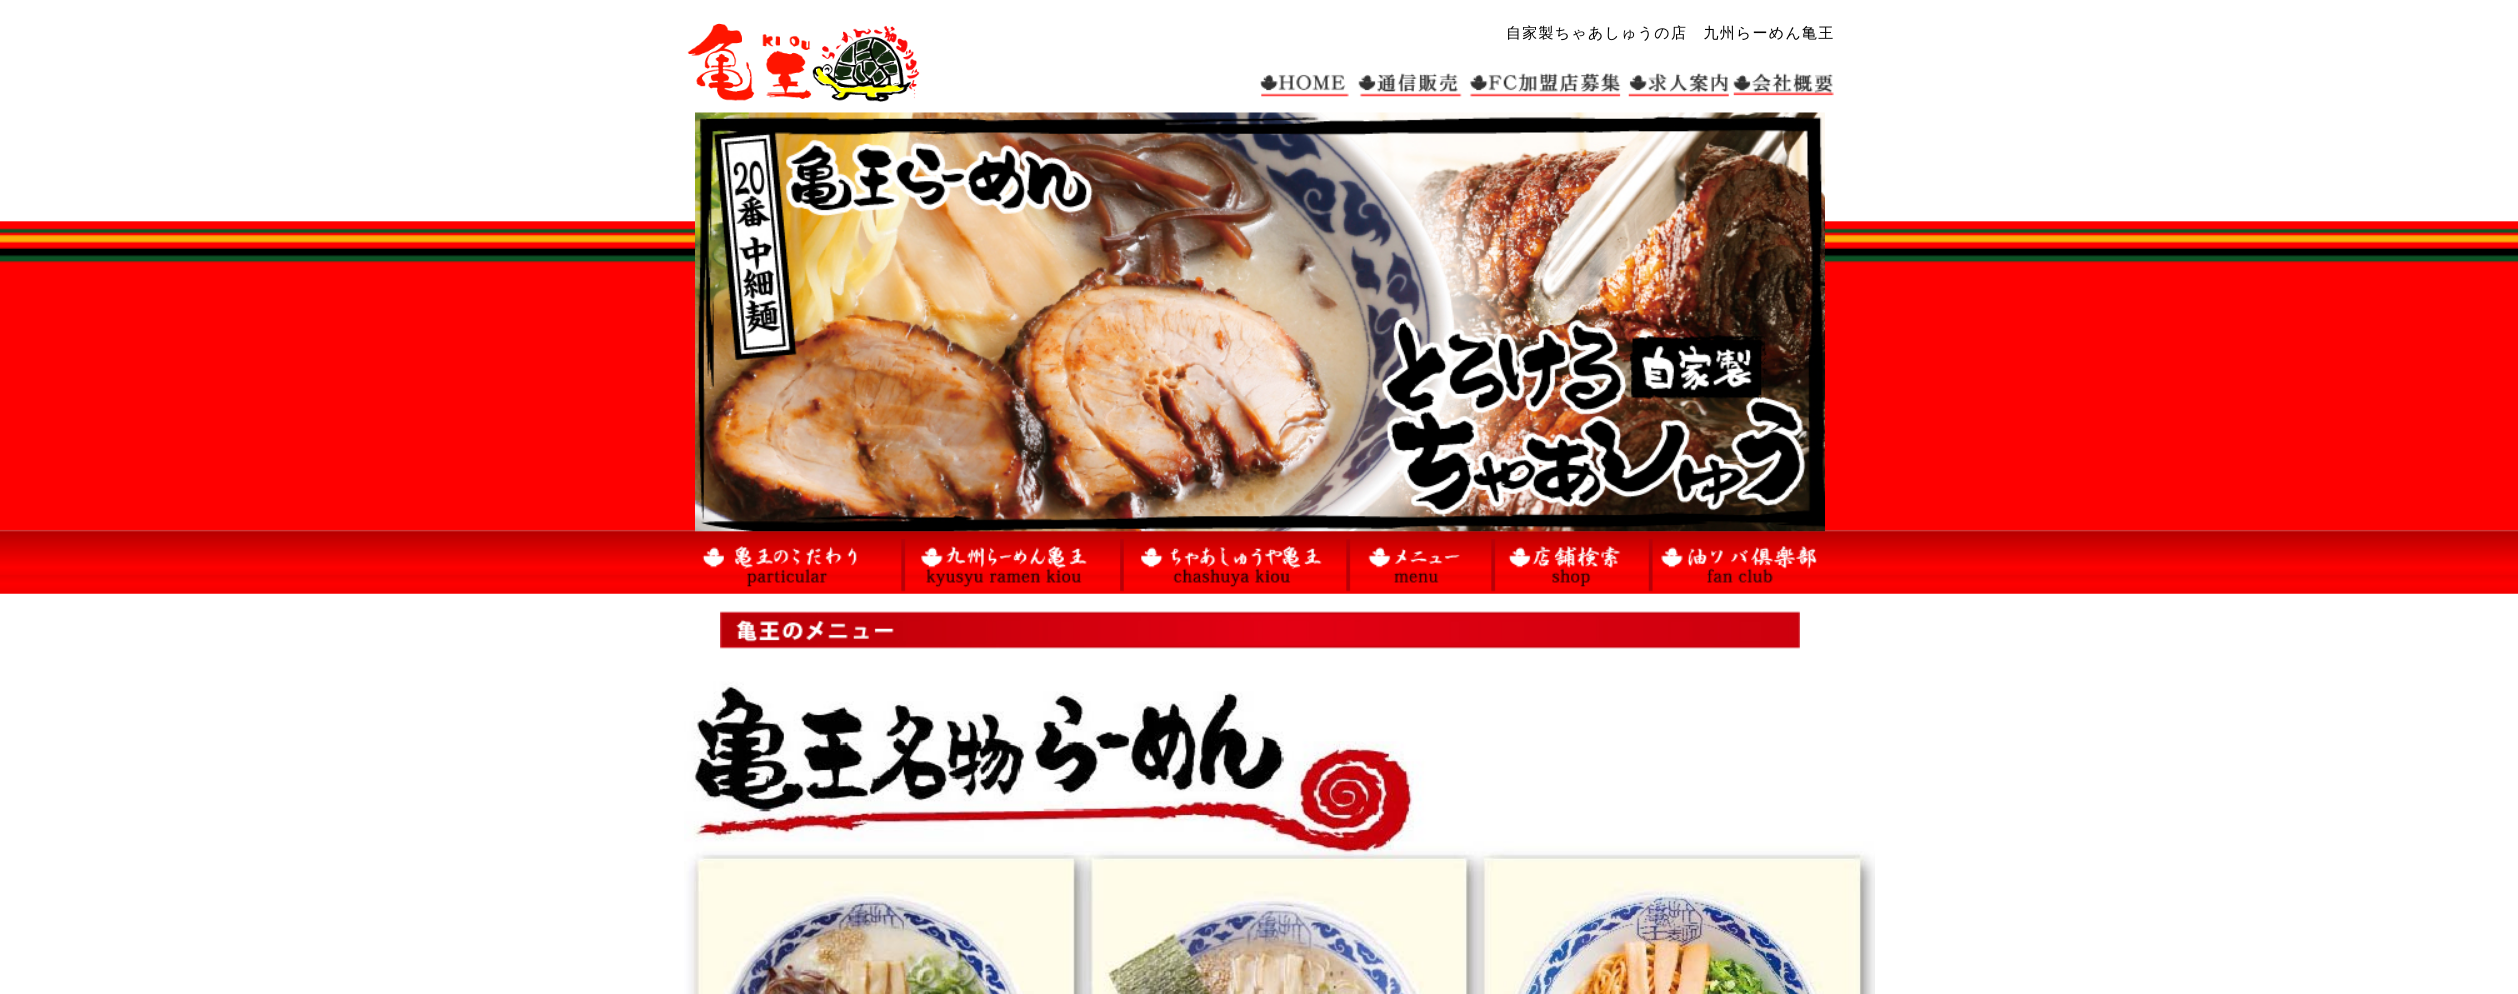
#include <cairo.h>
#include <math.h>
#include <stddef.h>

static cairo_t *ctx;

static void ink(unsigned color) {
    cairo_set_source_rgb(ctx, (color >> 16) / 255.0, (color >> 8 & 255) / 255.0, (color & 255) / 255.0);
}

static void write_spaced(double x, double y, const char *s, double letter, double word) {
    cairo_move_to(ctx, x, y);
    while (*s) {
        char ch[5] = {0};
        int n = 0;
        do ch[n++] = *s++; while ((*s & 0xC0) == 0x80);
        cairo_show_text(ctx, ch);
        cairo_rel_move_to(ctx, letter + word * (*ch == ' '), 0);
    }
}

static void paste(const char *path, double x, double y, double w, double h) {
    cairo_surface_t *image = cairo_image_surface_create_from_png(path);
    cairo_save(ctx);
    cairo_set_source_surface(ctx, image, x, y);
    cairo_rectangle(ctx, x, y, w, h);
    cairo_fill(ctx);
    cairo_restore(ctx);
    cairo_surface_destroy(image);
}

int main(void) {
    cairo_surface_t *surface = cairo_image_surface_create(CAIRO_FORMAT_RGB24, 2518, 994);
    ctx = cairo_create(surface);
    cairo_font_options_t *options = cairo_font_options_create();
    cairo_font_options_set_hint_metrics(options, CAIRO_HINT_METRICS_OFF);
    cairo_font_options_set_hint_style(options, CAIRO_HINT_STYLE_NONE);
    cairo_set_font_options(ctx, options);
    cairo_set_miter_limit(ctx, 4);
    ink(0xffffff);
    cairo_paint(ctx);
    paste("pic1.png", 0, 221, 2518, 373);
    paste("pic2.png", 687, 23, 233, 79);
    cairo_select_font_face(ctx, "WenQuanYi Zen Hei Medium", CAIRO_FONT_SLANT_NORMAL, CAIRO_FONT_WEIGHT_NORMAL);
    cairo_set_font_size(ctx, 15);
    ink(0x000000);
    write_spaced(1506, 38, "自家製ちゃあしゅうの店　九州らーめん亀王", 1.25, 0);
    paste("pic3.png", 1260, 74, 89, 23);
    paste("pic4.png", 1358, 73, 104, 24);
    paste("pic5.png", 1469, 73, 152, 24);
    paste("pic6.png", 1628, 73, 101, 24);
    paste("pic7.png", 1733, 73, 101, 23);
    paste("pic8.png", 695, 112, 1130, 420);
    paste("pic9.png", 702, 546, 155, 41);
    paste("pic10.png", 901, 539, 186, 53);
    paste("pic11.png", 1120, 539, 202, 53);
    paste("pic12.png", 1346, 539, 114, 53);
    paste("pic13.png", 1491, 539, 130, 53);
    paste("pic14.png", 1648, 539, 169, 53);
    paste("pic15.png", 720, 611, 1080, 38);
    paste("pic16.png", 684, 681, 1191, 313);
    cairo_surface_write_to_png(surface, "screenshot.png");
    cairo_font_options_destroy(options);
    cairo_destroy(ctx);
    cairo_surface_destroy(surface);
    return 0;
}
